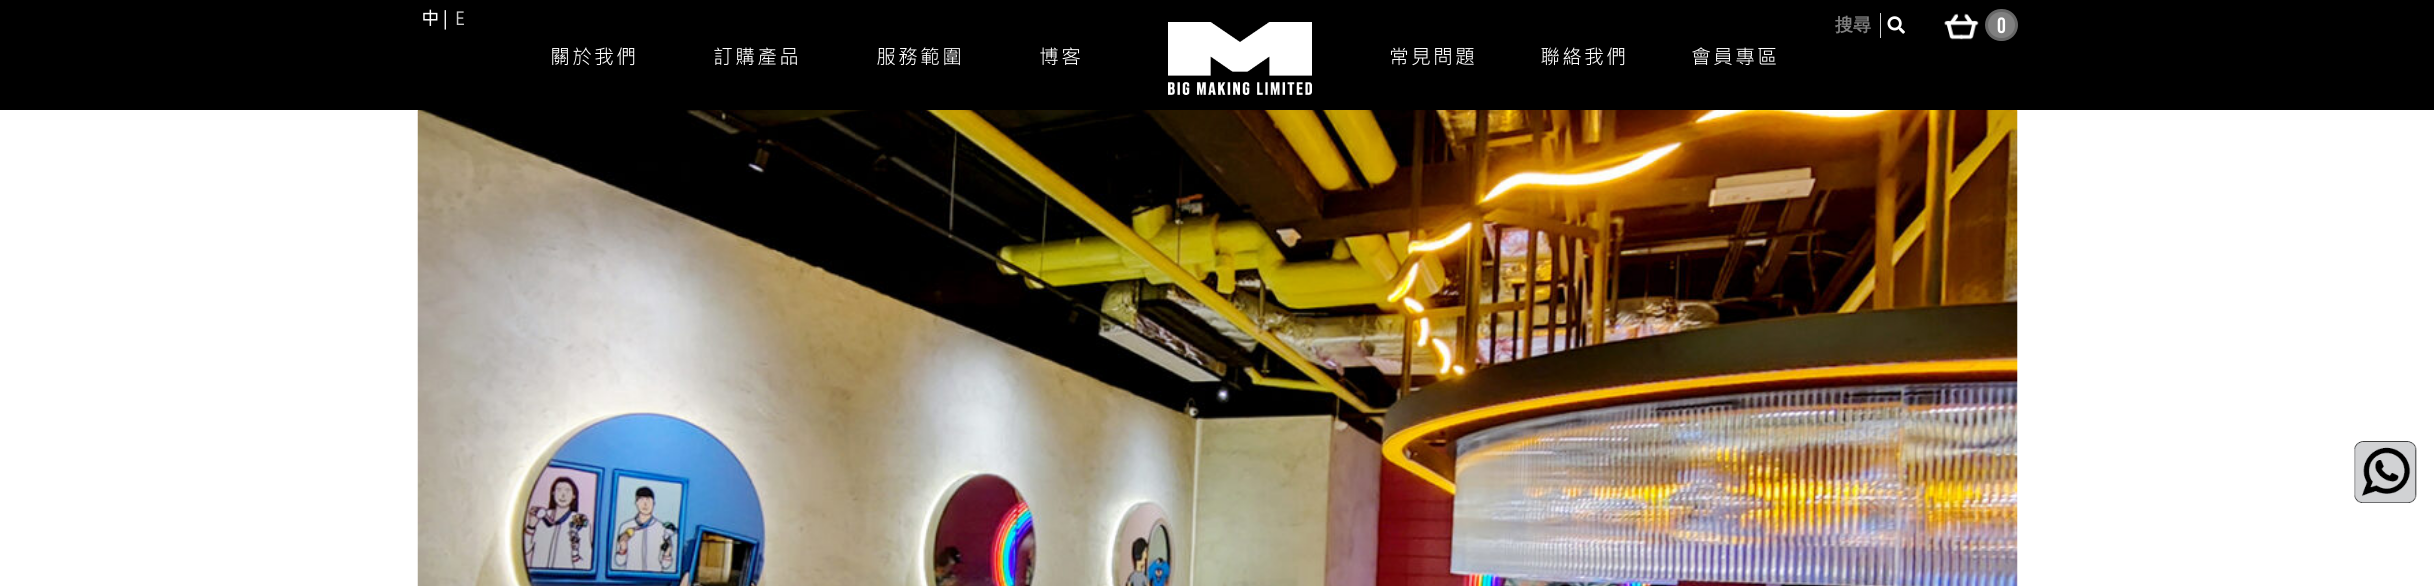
#include <cairo.h>
#include <math.h>
#include <stddef.h>

typedef struct { const char *family; double size; int italic, bold; unsigned color; } style_t;
static cairo_t *ctx;

static void ink(unsigned color) {
    cairo_set_source_rgb(ctx, (color >> 16) / 255.0, (color >> 8 & 255) / 255.0, (color & 255) / 255.0);
}

static void write(double x, double y, const char *s, const style_t *st) {
    cairo_select_font_face(ctx, st->family, st->italic ? CAIRO_FONT_SLANT_ITALIC : CAIRO_FONT_SLANT_NORMAL,
        st->bold ? CAIRO_FONT_WEIGHT_BOLD : CAIRO_FONT_WEIGHT_NORMAL);
    cairo_set_font_size(ctx, st->size);
    ink(st->color);
    cairo_move_to(ctx, x, y);
    cairo_show_text(ctx, s);
}

static void write_spaced(double x, double y, const char *s, double letter, double word) {
    cairo_move_to(ctx, x, y);
    while (*s) {
        char ch[5] = {0};
        int n = 0;
        do ch[n++] = *s++; while ((*s & 0xC0) == 0x80);
        cairo_show_text(ctx, ch);
        cairo_rel_move_to(ctx, letter + word * (*ch == ' '), 0);
    }
}

static void block(double x, double y, double w, double h, unsigned color) {
    ink(color);
    cairo_rectangle(ctx, x, y, w, h);
    cairo_fill(ctx);
}

static void round_path(double x, double y, double w, double h, double r) {
    cairo_new_sub_path(ctx);
    cairo_arc(ctx, x + w - r, y + h - r, r, 0, M_PI / 2);
    cairo_arc(ctx, x + r, y + h - r, r, M_PI / 2, M_PI);
    cairo_arc(ctx, x + r, y + r, r, M_PI, 1.5 * M_PI);
    cairo_arc(ctx, x + w - r, y + r, r, 1.5 * M_PI, 2 * M_PI);
    cairo_close_path(ctx);
}

static void paste(const char *path, double x, double y, double w, double h) {
    cairo_surface_t *image = cairo_image_surface_create_from_png(path);
    cairo_save(ctx);
    cairo_set_source_surface(ctx, image, x, y);
    cairo_rectangle(ctx, x, y, w, h);
    cairo_fill(ctx);
    cairo_restore(ctx);
    cairo_surface_destroy(image);
}

static const style_t s1 = {"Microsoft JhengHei", 18, 0, 1, 0xffffff};
static const style_t s2 = {"Microsoft JhengHei", 18, 0, 0, 0xffffff};
static const style_t s3 = {"Microsoft JhengHei", 18, 0, 0, 0xcccccc};
static const style_t s4 = {"WenQuanYi Zen Hei", 18, 0, 1, 0x808080};
static const style_t s5 = {"Bebas Neue", 22, 0, 0, 0xffffff};

int main(void) {
    cairo_surface_t *surface = cairo_image_surface_create(CAIRO_FORMAT_RGB24, 2434, 586);
    ctx = cairo_create(surface);
    cairo_font_options_t *options = cairo_font_options_create();
    cairo_font_options_set_hint_metrics(options, CAIRO_HINT_METRICS_OFF);
    cairo_font_options_set_hint_style(options, CAIRO_HINT_STYLE_NONE);
    cairo_set_font_options(ctx, options);
    cairo_set_miter_limit(ctx, 4);
    ink(0xffffff);
    cairo_paint(ctx);
    block(0, 0, 2434, 110, 0x000000);
    write(421, 25, "中", &s1);
    write(443, 25, "|", &s2);
    write(455, 25, "E", &s3);
    write(1835, 31, "搜尋", &s4);
    block(1880, 13, 1, 25, 0xd3d4d5);
    paste("pic1.png", 1887, 16, 18, 18);
    paste("pic2.png", 1944, 13, 35, 27);
    ink(0x808080);
    round_path(1986.5, 10.5, 30, 29, 14.5);
    cairo_fill_preserve(ctx);
    ink(0x666666);
    cairo_set_line_width(ctx, 3);
    cairo_stroke(ctx);
    write(1997, 33, "0", &s5);
    cairo_select_font_face(ctx, "Microsoft JhengHei", CAIRO_FONT_SLANT_NORMAL, CAIRO_FONT_WEIGHT_NORMAL);
    cairo_set_font_size(ctx, 20);
    write_spaced(550, 64, "關於我們", 2, 0);
    write_spaced(713, 64, "訂購產品", 2, 0);
    write_spaced(876, 64, "服務範圍", 2, 0);
    write_spaced(1039, 64, "博客", 2, 0);
    paste("pic3.png", 1168, 22, 144, 73);
    write_spaced(1389, 64, "常見問題", 2, 0);
    write_spaced(1540, 64, "聯絡我們", 2, 0);
    write_spaced(1691, 64, "會員專區", 2, 0);
    paste("pic4.png", 417, 110, 1601, 476);
    paste("pic5.png", 2354, 441, 63, 62);
    cairo_surface_write_to_png(surface, "screenshot.png");
    cairo_font_options_destroy(options);
    cairo_destroy(ctx);
    cairo_surface_destroy(surface);
    return 0;
}
